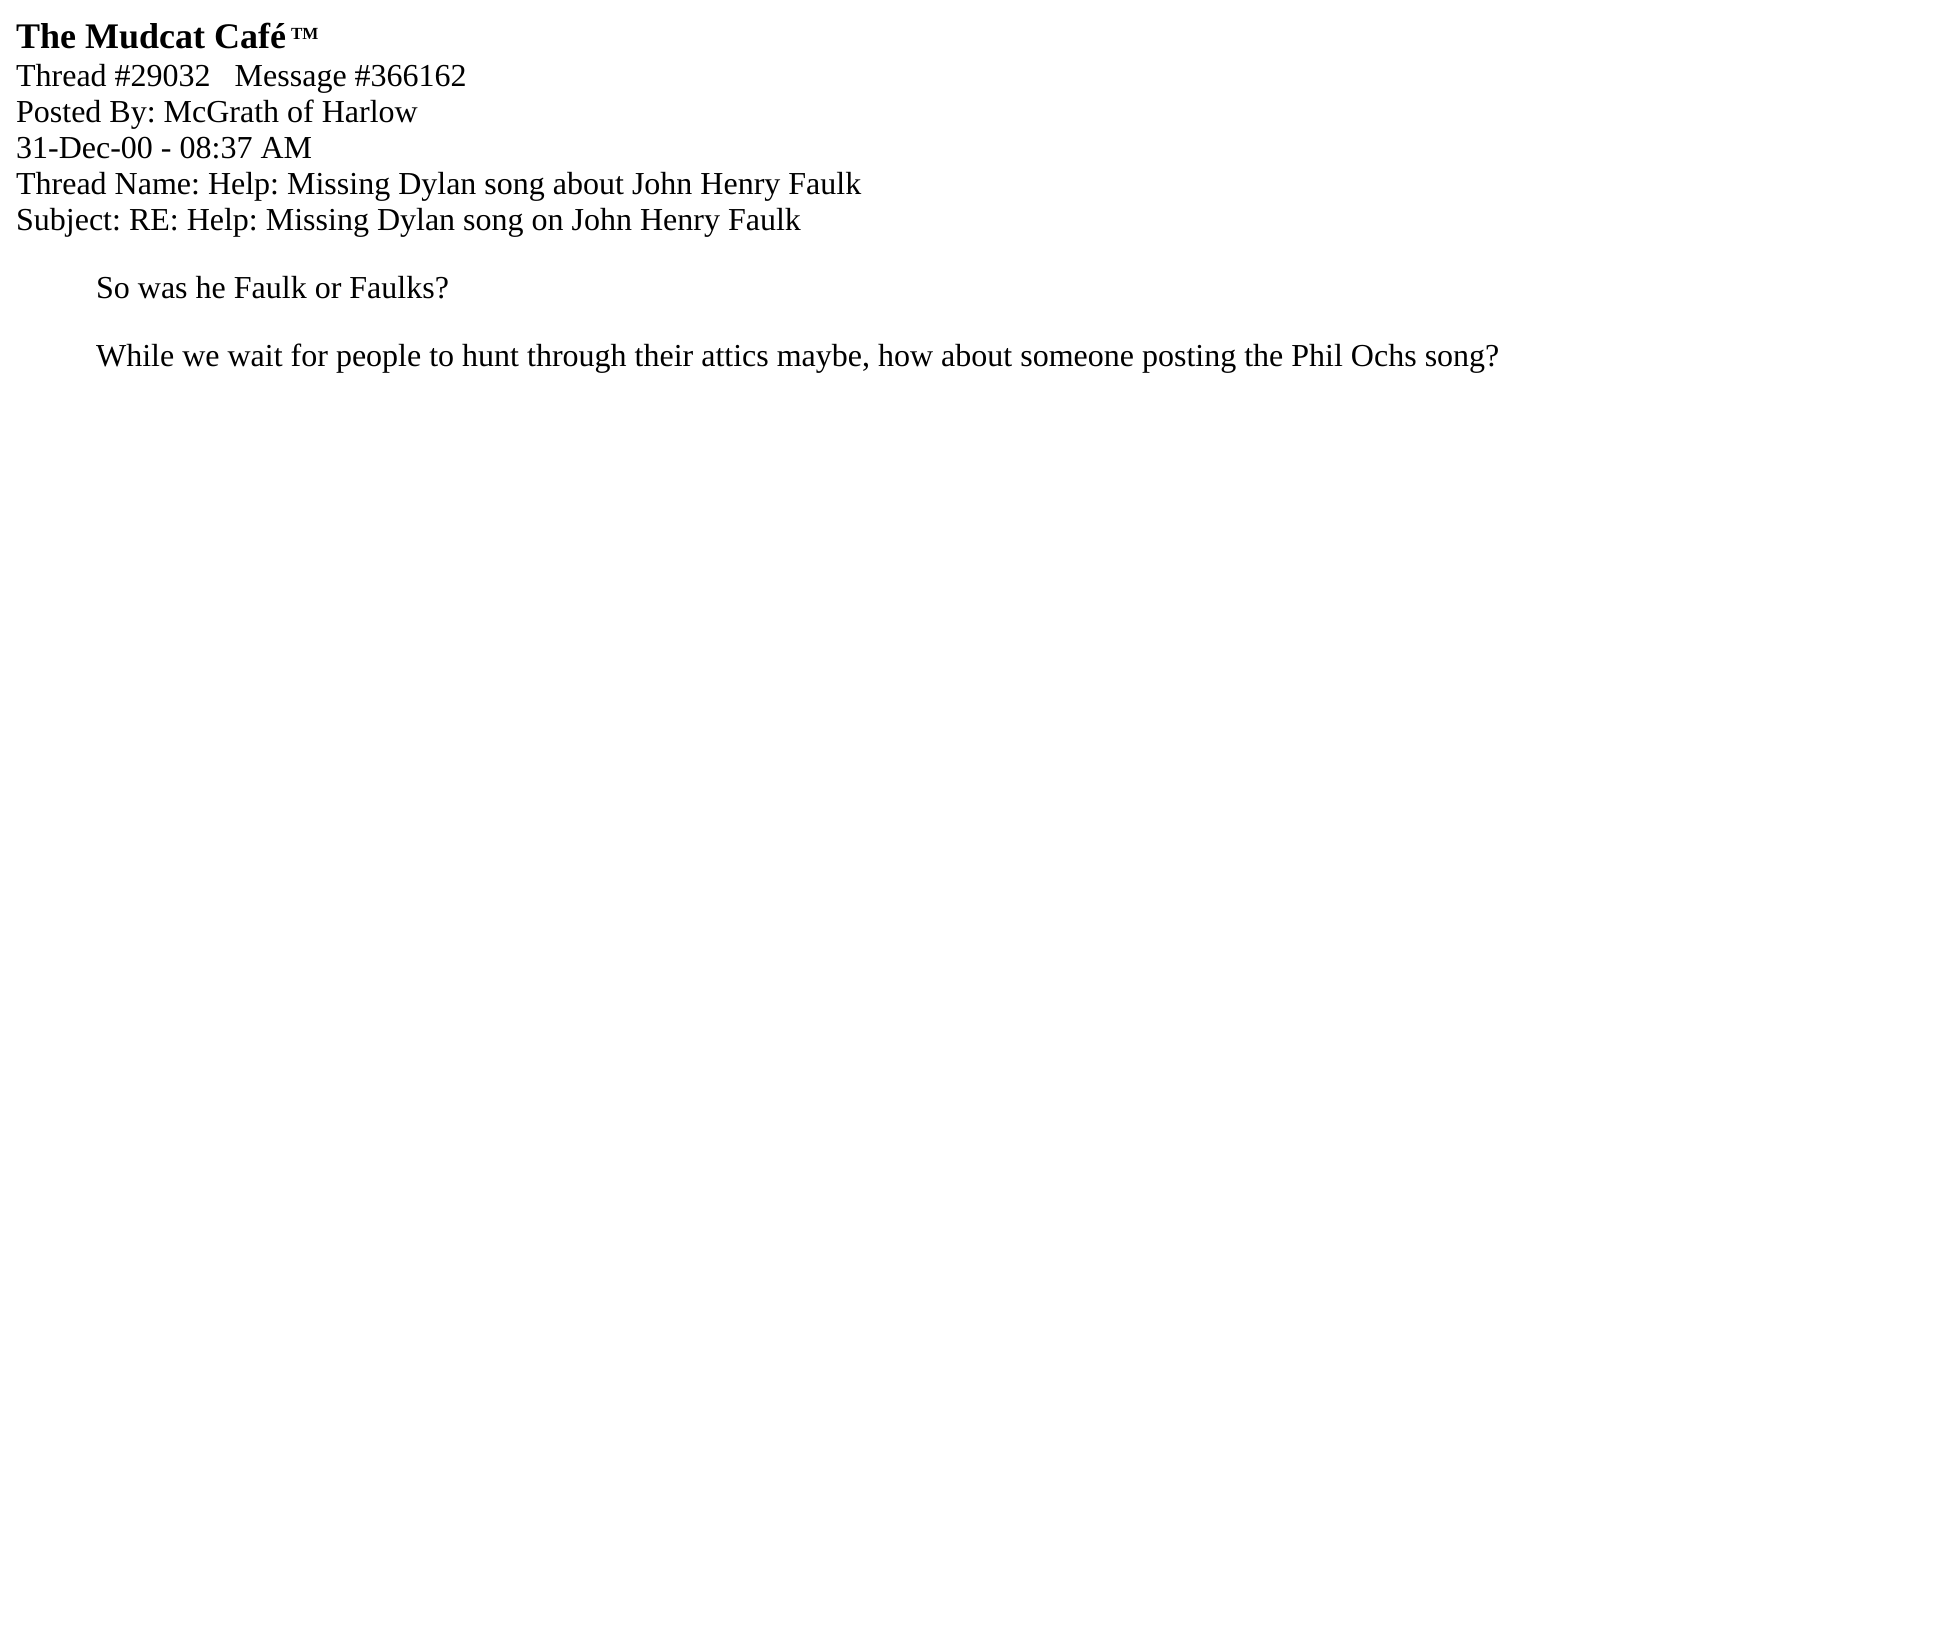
#include <cairo.h>
#include <math.h>
#include <stddef.h>

typedef struct { const char *family; double size; int italic, bold; unsigned color; } style_t;
static cairo_t *ctx;

static void ink(unsigned color) {
    cairo_set_source_rgb(ctx, (color >> 16) / 255.0, (color >> 8 & 255) / 255.0, (color & 255) / 255.0);
}

static void write(double x, double y, const char *s, const style_t *st) {
    cairo_select_font_face(ctx, st->family, st->italic ? CAIRO_FONT_SLANT_ITALIC : CAIRO_FONT_SLANT_NORMAL,
        st->bold ? CAIRO_FONT_WEIGHT_BOLD : CAIRO_FONT_WEIGHT_NORMAL);
    cairo_set_font_size(ctx, st->size);
    ink(st->color);
    cairo_move_to(ctx, x, y);
    cairo_show_text(ctx, s);
}

static const style_t s1 = {"Liberation Serif", 36, 0, 1, 0x000000};
static const style_t s2 = {"Liberation Serif", 17, 0, 1, 0x000000};
static const style_t s3 = {"Liberation Serif", 32, 0, 0, 0x000000};

int main(void) {
    cairo_surface_t *surface = cairo_image_surface_create(CAIRO_FORMAT_RGB24, 1934, 1640);
    ctx = cairo_create(surface);
    cairo_font_options_t *options = cairo_font_options_create();
    cairo_font_options_set_hint_metrics(options, CAIRO_HINT_METRICS_OFF);
    cairo_font_options_set_hint_style(options, CAIRO_HINT_STYLE_NONE);
    cairo_set_font_options(ctx, options);
    cairo_set_miter_limit(ctx, 4);
    ink(0xffffff);
    cairo_paint(ctx);
    write(16, 48, "The Mudcat Café", &s1);
    write(291, 39, "TM", &s2);
    write(16, 86, "Thread #29032   Message #366162", &s3);
    write(16, 122, "Posted By: McGrath of Harlow", &s3);
    write(16, 158, "31-Dec-00 - 08:37 AM", &s3);
    write(16, 194, "Thread Name: Help: Missing Dylan song about John Henry Faulk", &s3);
    write(16, 230, "Subject: RE: Help: Missing Dylan song on John Henry Faulk", &s3);
    write(96, 298, "So was he Faulk or Faulks?", &s3);
    write(96, 366, "While we wait for people to hunt through their attics maybe, how about someone posting the Phil Ochs song?", &s3);
    cairo_surface_write_to_png(surface, "screenshot.png");
    cairo_font_options_destroy(options);
    cairo_destroy(ctx);
    cairo_surface_destroy(surface);
    return 0;
}
